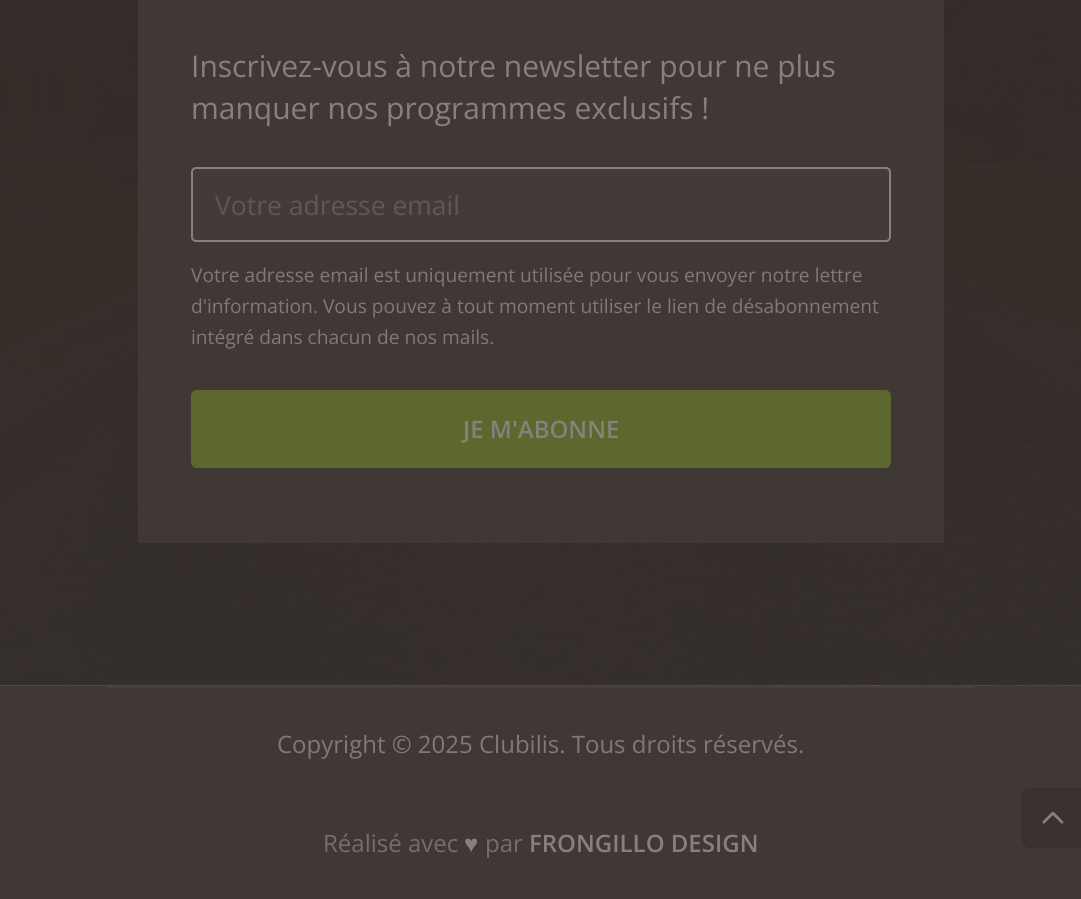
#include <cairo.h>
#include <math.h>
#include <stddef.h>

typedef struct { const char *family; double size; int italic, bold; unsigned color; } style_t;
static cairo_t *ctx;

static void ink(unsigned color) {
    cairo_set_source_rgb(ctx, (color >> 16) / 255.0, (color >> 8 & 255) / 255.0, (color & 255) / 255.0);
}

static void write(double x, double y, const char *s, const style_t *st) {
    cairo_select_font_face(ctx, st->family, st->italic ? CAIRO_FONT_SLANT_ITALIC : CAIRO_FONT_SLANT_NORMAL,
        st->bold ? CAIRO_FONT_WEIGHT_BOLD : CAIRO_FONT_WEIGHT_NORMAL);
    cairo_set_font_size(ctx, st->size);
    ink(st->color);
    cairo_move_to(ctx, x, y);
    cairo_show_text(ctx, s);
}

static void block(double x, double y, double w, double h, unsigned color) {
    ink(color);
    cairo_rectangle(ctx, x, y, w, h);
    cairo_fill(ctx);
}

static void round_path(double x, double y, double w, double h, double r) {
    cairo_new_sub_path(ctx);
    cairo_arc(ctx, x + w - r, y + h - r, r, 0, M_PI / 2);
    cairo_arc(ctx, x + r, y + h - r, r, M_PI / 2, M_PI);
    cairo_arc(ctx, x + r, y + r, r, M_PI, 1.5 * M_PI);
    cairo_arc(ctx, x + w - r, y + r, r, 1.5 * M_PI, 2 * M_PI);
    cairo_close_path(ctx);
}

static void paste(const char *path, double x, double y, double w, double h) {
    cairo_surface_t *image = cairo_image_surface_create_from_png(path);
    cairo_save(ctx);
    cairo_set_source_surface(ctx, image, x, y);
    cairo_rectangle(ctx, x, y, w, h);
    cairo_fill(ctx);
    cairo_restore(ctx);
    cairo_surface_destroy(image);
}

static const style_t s1 = {"Open Sans", 30, 0, 0, 0x86807f};
static const style_t s2 = {"Open Sans", 26.5, 0, 0, 0x5e5857};
static const style_t s3 = {"Open Sans", 19.2, 0, 0, 0x7f7978};
static const style_t s4 = {"Open Sans SemiBold", 24, 0, 0, 0x86807f};
static const style_t s5 = {"Open Sans", 24, 0, 0, 0x7f7978};
static const style_t s6 = {"Open Sans", 24, 0, 0, 0x746e6d};
static const style_t s7 = {"Liberation Sans", 24, 0, 0, 0x86807f};

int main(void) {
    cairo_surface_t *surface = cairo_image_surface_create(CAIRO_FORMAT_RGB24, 1081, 899);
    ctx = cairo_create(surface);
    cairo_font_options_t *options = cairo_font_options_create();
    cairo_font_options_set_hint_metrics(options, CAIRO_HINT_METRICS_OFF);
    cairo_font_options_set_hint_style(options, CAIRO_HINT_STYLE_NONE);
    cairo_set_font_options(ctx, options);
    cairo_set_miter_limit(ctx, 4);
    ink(0x483f3d);
    cairo_paint(ctx);
    paste("pic1.png", 0, 0, 1081, 686);
    block(138, 0, 806, 543, 0x3f3835);
    write(191, 77, "Inscrivez-vous à notre newsletter pour ne plus", &s1);
    write(191, 119, "manquer nos programmes exclusifs !", &s1);
    ink(0x433b39);
    round_path(192, 168, 698, 73, 4);
    cairo_fill_preserve(ctx);
    ink(0x86807f);
    cairo_stroke(ctx);
    write(215, 215, "Votre adresse email", &s2);
    write(191, 282, "Votre adresse email est uniquement utilisée pour vous envoyer notre lettre", &s3);
    write(191, 313, "d'information. Vous pouvez à tout moment utiliser le lien de désabonnement", &s3);
    write(191, 344, "intégré dans chacun de nos mails.", &s3);
    ink(0x5d672e);
    round_path(191, 390, 700, 78, 6);
    cairo_fill(ctx);
    write(463, 438, "JE M'ABONNE", &s4);
    block(0, 686, 1081, 213, 0x3f3835);
    block(108, 686, 866, 2, 0x463f3d);
    write(277, 753, "Copyright © 2025 Clubilis. Tous droits réservés.", &s5);
    write(323, 852, "Réalisé avec", &s6);
    write(464, 852, "♥", &s7);
    write(485, 852, "par", &s6);
    write(529, 852, "FRONGILLO DESIGN", &s4);
    ink(0x3a312f);
    cairo_new_path(ctx);
    cairo_move_to(ctx, 1030, 788);
    cairo_line_to(ctx, 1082, 788);
    cairo_line_to(ctx, 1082, 848);
    cairo_line_to(ctx, 1030, 848);
    cairo_curve_to(ctx, 1025.5, 848, 1022, 844.5, 1022, 840);
    cairo_line_to(ctx, 1022, 796);
    cairo_curve_to(ctx, 1022, 791.5, 1025.5, 788, 1030, 788);
    cairo_close_path(ctx);
    cairo_fill(ctx);
    paste("pic2.png", 1042, 811, 22, 13);
    cairo_surface_write_to_png(surface, "screenshot.png");
    cairo_font_options_destroy(options);
    cairo_destroy(ctx);
    cairo_surface_destroy(surface);
    return 0;
}
